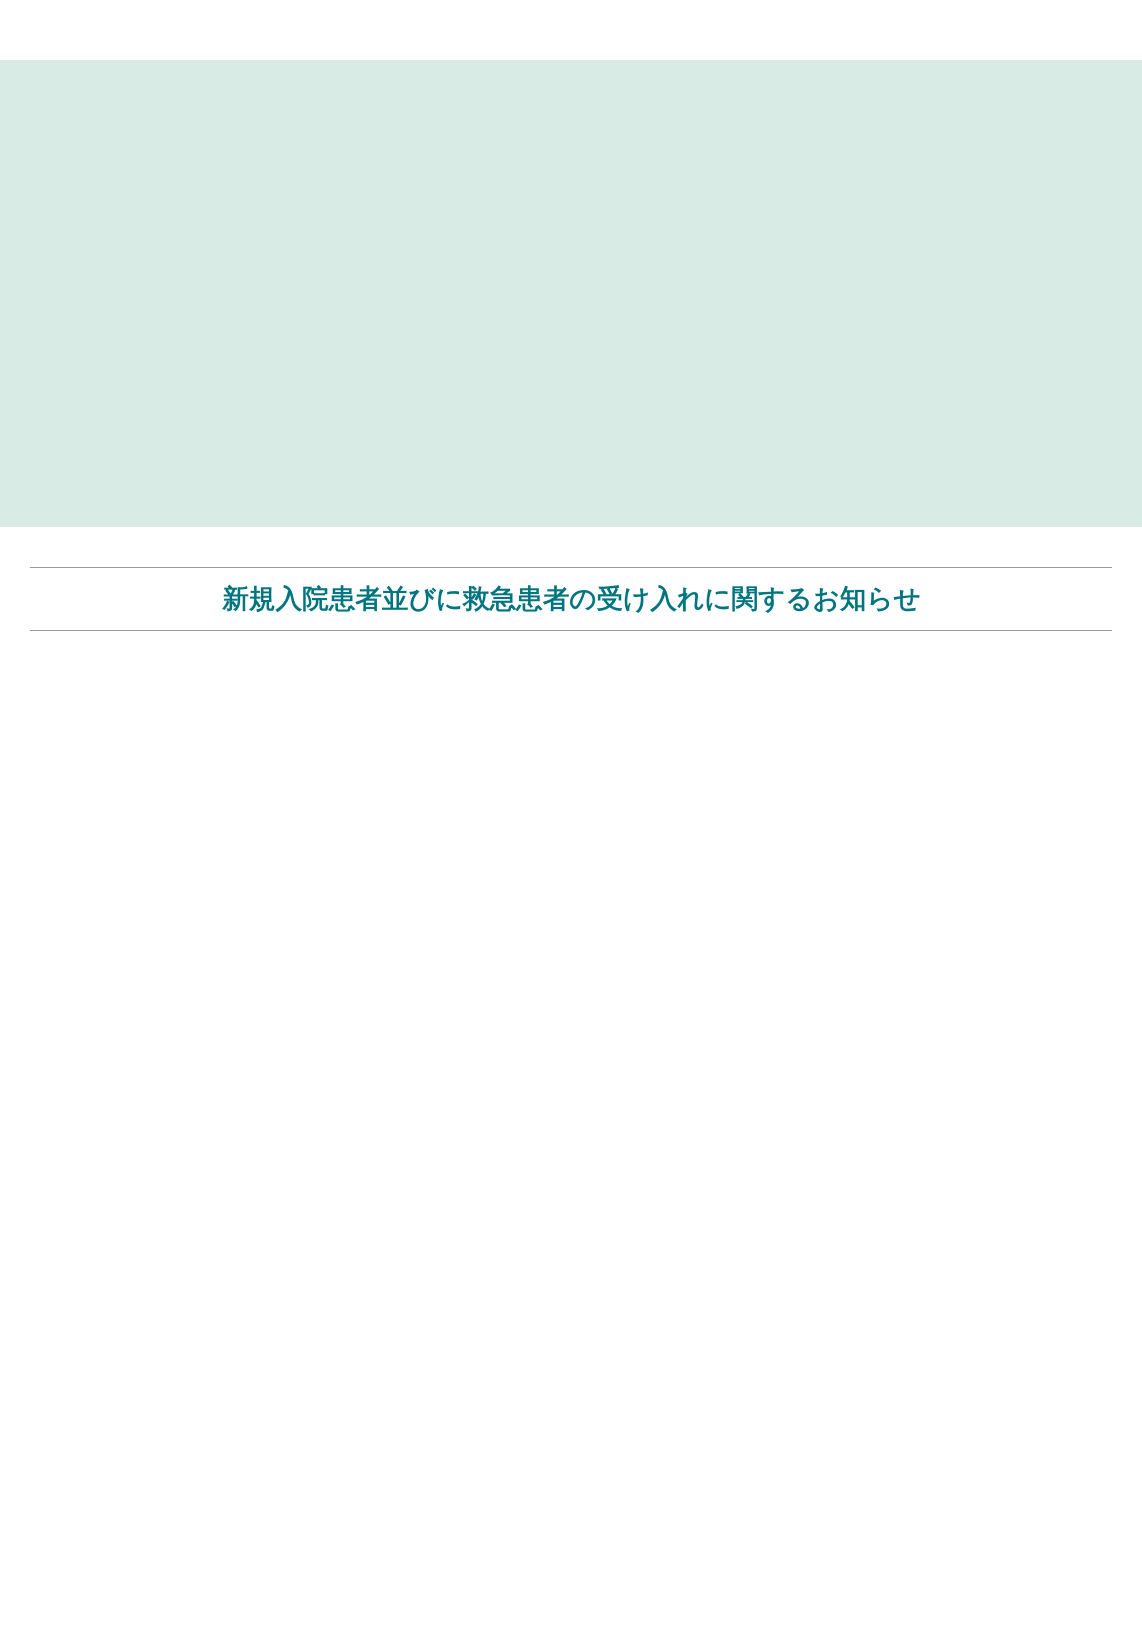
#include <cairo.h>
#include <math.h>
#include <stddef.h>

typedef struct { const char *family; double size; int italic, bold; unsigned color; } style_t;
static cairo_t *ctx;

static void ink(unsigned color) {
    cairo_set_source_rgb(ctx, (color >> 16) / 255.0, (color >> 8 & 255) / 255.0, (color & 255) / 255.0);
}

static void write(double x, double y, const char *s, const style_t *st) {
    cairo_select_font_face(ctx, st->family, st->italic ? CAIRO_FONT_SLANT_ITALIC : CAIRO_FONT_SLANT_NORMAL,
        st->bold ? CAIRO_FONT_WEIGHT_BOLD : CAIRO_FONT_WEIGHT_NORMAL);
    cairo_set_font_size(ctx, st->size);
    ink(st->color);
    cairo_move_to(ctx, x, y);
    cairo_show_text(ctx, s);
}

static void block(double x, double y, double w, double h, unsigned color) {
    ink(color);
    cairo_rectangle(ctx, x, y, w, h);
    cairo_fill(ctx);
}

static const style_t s1 = {"WenQuanYi Zen Hei", 26.6, 0, 1, 0x007580};

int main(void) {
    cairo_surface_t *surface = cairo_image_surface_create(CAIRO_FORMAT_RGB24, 1142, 1651);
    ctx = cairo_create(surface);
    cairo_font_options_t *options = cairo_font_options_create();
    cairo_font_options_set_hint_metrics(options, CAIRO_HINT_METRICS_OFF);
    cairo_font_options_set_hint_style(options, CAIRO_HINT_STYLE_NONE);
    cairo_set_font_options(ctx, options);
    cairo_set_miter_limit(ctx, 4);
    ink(0xffffff);
    cairo_paint(ctx);
    block(0, 60, 1142, 467, 0xd8ebe4);
    block(30, 567, 1082, 1, 0x999999);
    write(222, 608, "新規入院患者並びに救急患者の受け入れに関するお知らせ", &s1);
    block(30, 630, 1082, 1, 0x999999);
    cairo_surface_write_to_png(surface, "screenshot.png");
    cairo_font_options_destroy(options);
    cairo_destroy(ctx);
    cairo_surface_destroy(surface);
    return 0;
}
